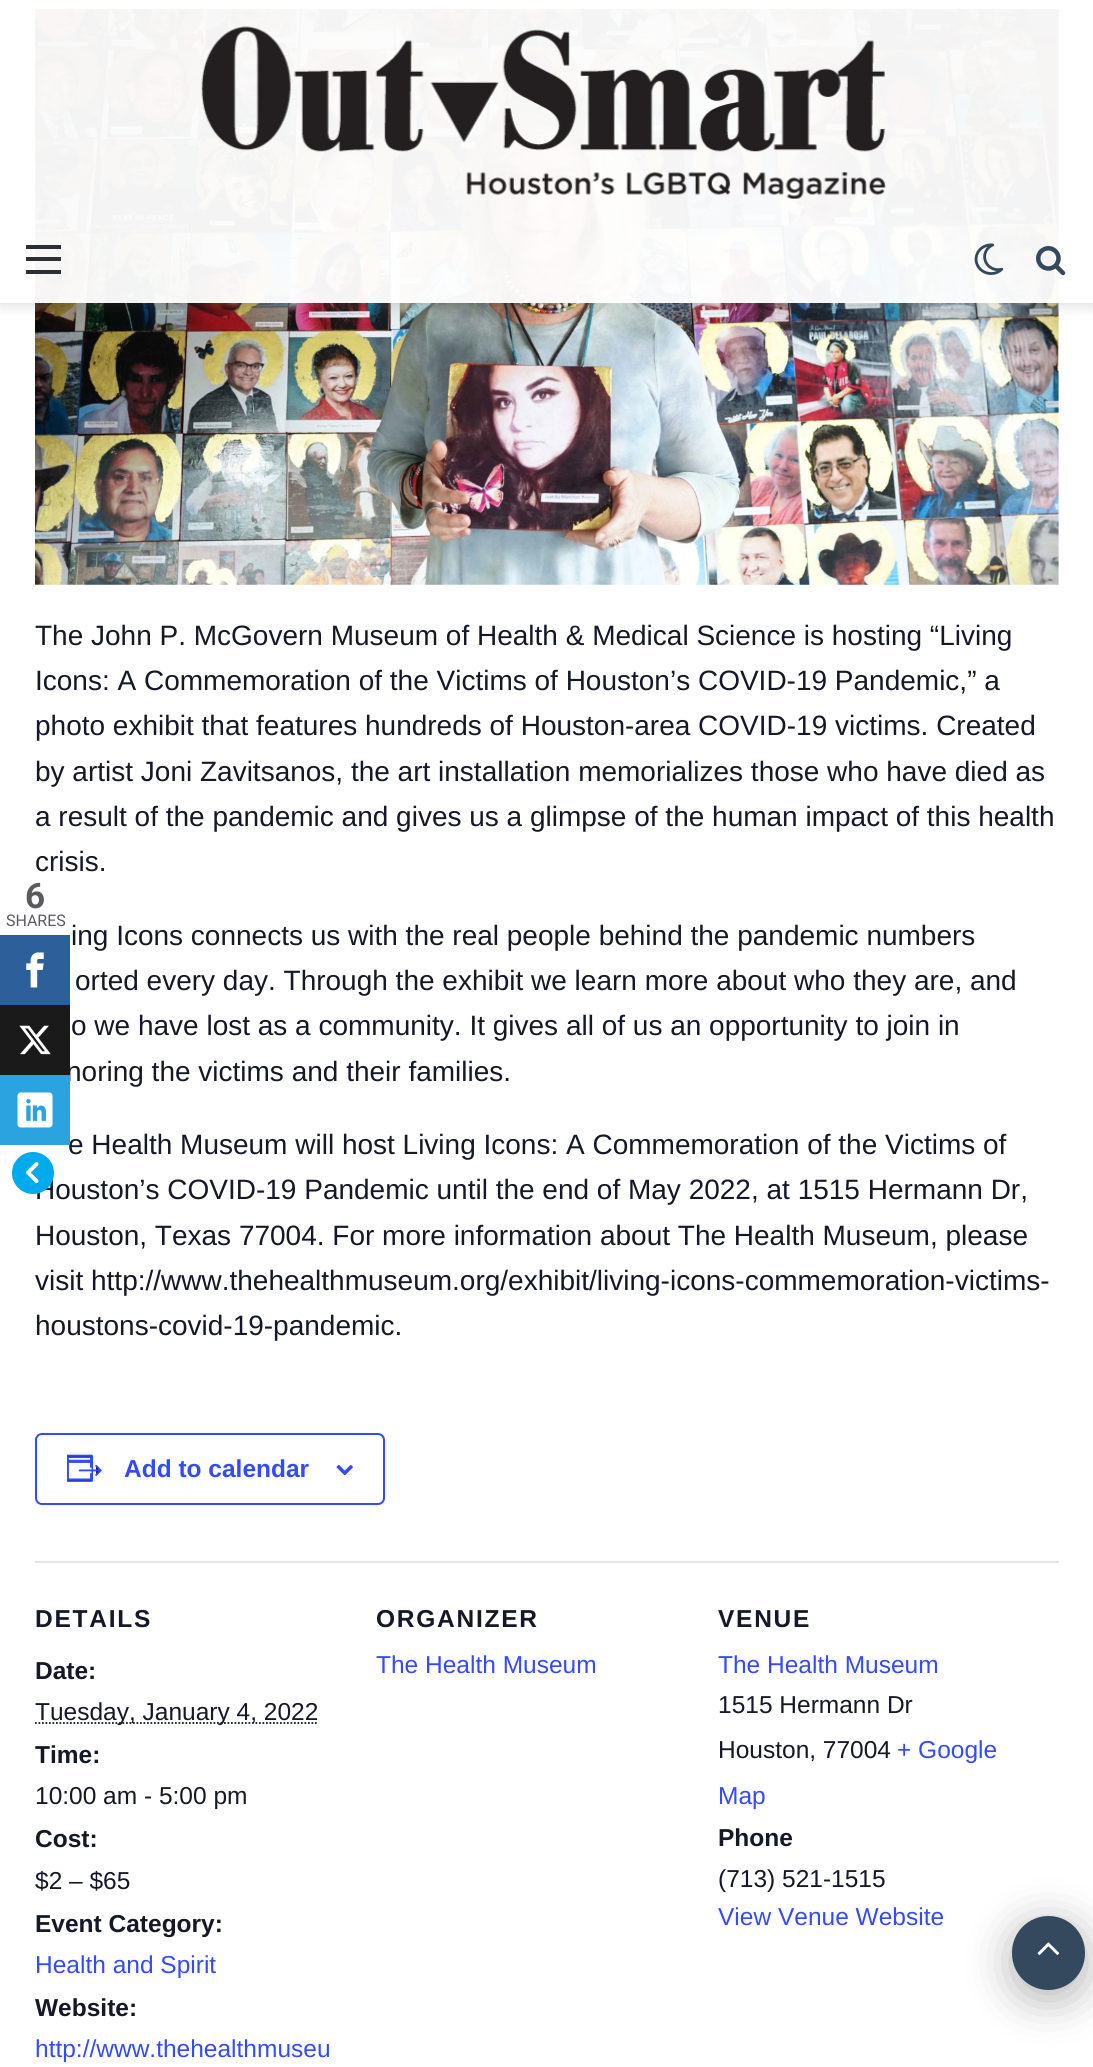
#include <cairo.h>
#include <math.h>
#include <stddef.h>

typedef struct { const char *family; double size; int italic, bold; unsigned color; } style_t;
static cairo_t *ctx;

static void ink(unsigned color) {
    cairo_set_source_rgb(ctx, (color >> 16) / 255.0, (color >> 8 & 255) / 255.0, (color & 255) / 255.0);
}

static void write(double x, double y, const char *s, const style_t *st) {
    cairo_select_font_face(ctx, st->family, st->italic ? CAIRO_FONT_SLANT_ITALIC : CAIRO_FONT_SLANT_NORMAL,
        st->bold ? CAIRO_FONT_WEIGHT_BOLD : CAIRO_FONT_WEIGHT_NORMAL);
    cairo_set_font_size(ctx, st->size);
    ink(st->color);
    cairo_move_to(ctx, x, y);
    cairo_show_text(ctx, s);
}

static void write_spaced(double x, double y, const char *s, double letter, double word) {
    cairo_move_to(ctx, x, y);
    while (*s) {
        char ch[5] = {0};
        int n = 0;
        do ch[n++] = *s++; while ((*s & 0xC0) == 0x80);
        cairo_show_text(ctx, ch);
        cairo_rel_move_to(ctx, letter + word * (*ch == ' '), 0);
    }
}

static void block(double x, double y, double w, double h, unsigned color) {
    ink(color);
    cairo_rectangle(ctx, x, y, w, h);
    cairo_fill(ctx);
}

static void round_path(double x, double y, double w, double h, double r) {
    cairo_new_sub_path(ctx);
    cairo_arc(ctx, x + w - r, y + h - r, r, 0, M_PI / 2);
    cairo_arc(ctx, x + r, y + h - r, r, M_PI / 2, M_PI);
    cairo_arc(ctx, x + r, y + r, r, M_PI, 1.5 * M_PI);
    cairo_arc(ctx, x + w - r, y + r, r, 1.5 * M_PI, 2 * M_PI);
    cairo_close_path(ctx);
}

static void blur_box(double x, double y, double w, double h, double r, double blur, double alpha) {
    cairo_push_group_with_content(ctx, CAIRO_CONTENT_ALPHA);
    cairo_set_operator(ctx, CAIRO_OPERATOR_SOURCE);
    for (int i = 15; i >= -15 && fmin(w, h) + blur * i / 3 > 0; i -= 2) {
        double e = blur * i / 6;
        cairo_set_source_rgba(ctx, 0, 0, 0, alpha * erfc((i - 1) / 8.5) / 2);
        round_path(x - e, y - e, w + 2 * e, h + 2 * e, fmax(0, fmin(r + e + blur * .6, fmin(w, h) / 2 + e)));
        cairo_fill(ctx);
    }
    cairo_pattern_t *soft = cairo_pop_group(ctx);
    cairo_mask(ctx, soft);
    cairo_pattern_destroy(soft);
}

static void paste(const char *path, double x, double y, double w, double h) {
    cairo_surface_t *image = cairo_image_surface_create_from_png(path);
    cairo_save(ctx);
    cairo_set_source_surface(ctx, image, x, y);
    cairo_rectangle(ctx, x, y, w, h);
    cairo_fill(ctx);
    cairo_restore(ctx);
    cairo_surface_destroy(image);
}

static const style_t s1 = {"Liberation Sans", 28, 0, 0, 0x141827};
static const style_t s2 = {"Liberation Sans", 24.5, 0, 1, 0x334aff};
static const style_t s3 = {"Liberation Sans", 24.5, 0, 1, 0x141827};
static const style_t s4 = {"Liberation Sans", 24.5, 0, 0, 0x141827};
static const style_t s5 = {"Liberation Sans", 24.5, 0, 0, 0x334aff};
static const style_t s6 = {"Roboto", 35, 0, 1, 0x5a5a5f};
static const style_t s7 = {"Roboto", 16, 0, 0, 0x5a5a5f};

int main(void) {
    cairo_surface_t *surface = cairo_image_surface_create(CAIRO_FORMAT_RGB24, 1093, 2067);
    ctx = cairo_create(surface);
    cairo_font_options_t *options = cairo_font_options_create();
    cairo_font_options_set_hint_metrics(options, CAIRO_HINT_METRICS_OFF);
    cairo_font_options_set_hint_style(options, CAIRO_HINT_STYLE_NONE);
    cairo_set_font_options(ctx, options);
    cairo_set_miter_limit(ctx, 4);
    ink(0xffffff);
    cairo_paint(ctx);
    paste("pic4.png", 35, 9, 1024, 576);
    cairo_save(ctx);
    cairo_set_fill_rule(ctx, CAIRO_FILL_RULE_EVEN_ODD);
    cairo_new_path(ctx);
    cairo_move_to(ctx, 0, 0);
    cairo_line_to(ctx, 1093, 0);
    cairo_line_to(ctx, 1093, 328);
    cairo_line_to(ctx, 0, 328);
    cairo_close_path(ctx);
    cairo_move_to(ctx, 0, 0);
    cairo_line_to(ctx, 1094, 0);
    cairo_line_to(ctx, 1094, 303);
    cairo_line_to(ctx, 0, 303);
    cairo_close_path(ctx);
    cairo_clip(ctx);
    ink(0x636363);
    blur_box(0, 4, 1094, 302, 0, 7, 0.2);
    cairo_restore(ctx);
    cairo_set_source_rgba(ctx, 1, 1, 1, 0.95);
    cairo_rectangle(ctx, 0, 9, 1093, 294);
    cairo_fill(ctx);
    paste("pic1.png", 201, 26, 685, 173);
    block(26, 257, 35, 4, 0x2c2f34);
    block(26, 245, 35, 4, 0x2c2f34);
    block(26, 270, 35, 4, 0x2c2f34);
    paste("pic2.png", 974, 243, 30, 32);
    paste("pic3.png", 1036, 246, 30, 30);
    write(35, 645, "The John P. McGovern Museum of Health & Medical Science is hosting “Living", &s1);
    write(35, 690, "Icons: A Commemoration of the Victims of Houston’s COVID-19 Pandemic,” a", &s1);
    write(35, 735, "photo exhibit that features hundreds of Houston-area COVID-19 victims. Created", &s1);
    write(35, 781, "by artist Joni Zavitsanos, the art installation memorializes those who have died as", &s1);
    write(35, 826, "a result of the pandemic and gives us a glimpse of the human impact of this health", &s1);
    write(35, 871, "crisis.", &s1);
    write(71, 945, "ing Icons connects us with the real people behind the pandemic numbers", &s1);
    write(75, 990, "orted every day. Through the exhibit we learn more about who they are, and", &s1);
    write(71, 1035, "o we have lost as a community. It gives all of us an opportunity to join in", &s1);
    write(66, 1081, "noring the victims and their families.", &s1);
    write(68, 1154, "e Health Museum will host Living Icons: A Commemoration of the Victims of", &s1);
    write(35, 1199, "Houston’s COVID-19 Pandemic until the end of May 2022, at 1515 Hermann Dr,", &s1);
    write(35, 1245, "Houston, Texas 77004. For more information about The Health Museum, please", &s1);
    write(35, 1290, "visit http://www.thehealthmuseum.org/exhibit/living-icons-commemoration-victims-", &s1);
    write(35, 1335, "houstons-covid-19-pandemic.", &s1);
    round_path(36, 1434, 348, 70, 6);
    ink(0x334aff);
    cairo_stroke(ctx);
    paste("pic5.png", 67, 1454, 35, 28);
    write(124, 1477, "Add to calendar", &s2);
    paste("pic6.png", 336, 1465, 18, 10);
    block(35, 1561, 1024, 2, 0xe4e4e4);
    ink(0x141827);
    write_spaced(35, 1627, "DETAILS", 1.75, 0);
    write(35, 1679, "Date:", &s3);
    cairo_new_path(ctx);
    cairo_move_to(ctx, 35, 1723);
    cairo_line_to(ctx, 318.5, 1723);
    cairo_set_line_width(ctx, 1.8);
    cairo_set_dash(ctx, (double[]){1.75, 1.75}, 2, 0);
    cairo_stroke(ctx);
    write(35, 1720, "Tuesday, January 4, 2022", &s4);
    write(35, 1763, "Time:", &s3);
    write(35, 1804, "10:00 am - 5:00 pm", &s4);
    write(35, 1847, "Cost:", &s3);
    write(35, 1889, "$2 – $65", &s4);
    write(35, 1932, "Event Category:", &s3);
    write(35, 1973, "Health and Spirit", &s5);
    write(35, 2016, "Website:", &s3);
    write(35, 2057, "http://www.thehealthmuseu", &s5);
    cairo_select_font_face(ctx, "Liberation Sans", CAIRO_FONT_SLANT_NORMAL, CAIRO_FONT_WEIGHT_BOLD);
    ink(0x141827);
    write_spaced(376, 1627, "ORGANIZER", 1.75, 0);
    write(376, 1673, "The Health Museum", &s5);
    cairo_select_font_face(ctx, "Liberation Sans", CAIRO_FONT_SLANT_NORMAL, CAIRO_FONT_WEIGHT_BOLD);
    ink(0x141827);
    write_spaced(718, 1627, "VENUE", 1.75, 0);
    write(718, 1673, "The Health Museum", &s5);
    write(718, 1713, "1515 Hermann Dr", &s4);
    write(718, 1758, "Houston, 77004", &s4);
    write(897, 1758, "+ Google", &s5);
    write(718, 1804, "Map", &s5);
    write(718, 1846, "Phone", &s3);
    write(718, 1887, "(713) 521-1515", &s4);
    write(718, 1925, "View Venue Website", &s5);
    ink(0x000000);
    blur_box(1012, 1925, 73, 74, 36.5, 22, 0.3);
    ink(0x34495e);
    round_path(1012, 1916, 73, 74, 36.5);
    cairo_fill(ctx);
    paste("pic7.png", 1037, 1942, 23, 13);
    write(25, 908, "6", &s6);
    write(6, 926, "SHARES", &s7);
    block(0, 935, 70, 70, 0x2d5f9a);
    paste("pic8.png", 26, 952, 18, 36);
    block(0, 1005, 70, 70, 0x1a1a1a);
    paste("pic9.png", 19, 1025, 32, 30);
    block(0, 1075, 70, 70, 0x2ba3e1);
    paste("pic10.png", 17, 1092, 36, 36);
    ink(0x00abed);
    cairo_arc(ctx, 33, 1173, 21, 0, 2 * M_PI);
    cairo_fill(ctx);
    paste("pic11.png", 26, 1162, 13, 21);
    cairo_surface_write_to_png(surface, "screenshot.png");
    cairo_font_options_destroy(options);
    cairo_destroy(ctx);
    cairo_surface_destroy(surface);
    return 0;
}
